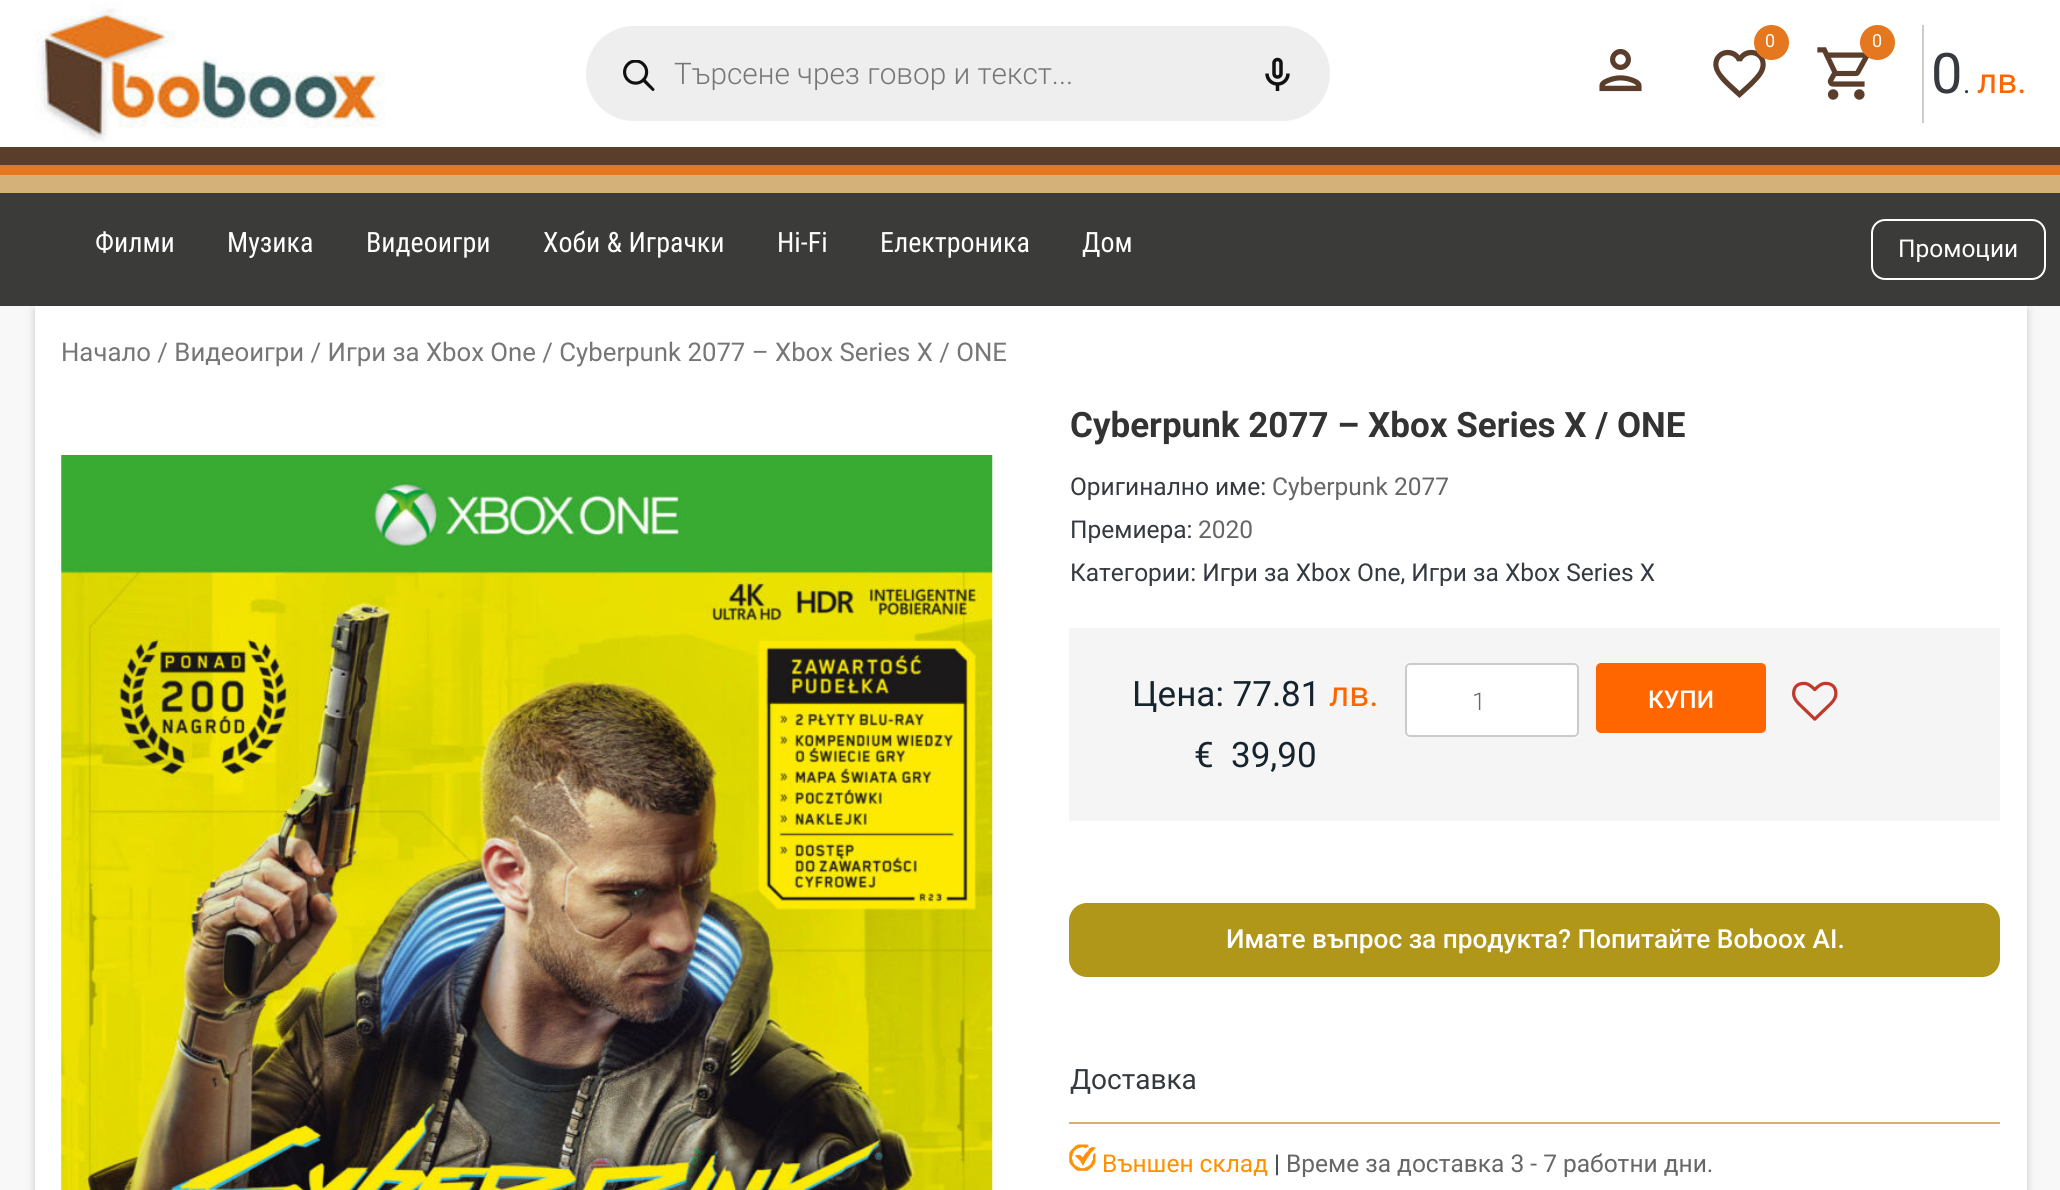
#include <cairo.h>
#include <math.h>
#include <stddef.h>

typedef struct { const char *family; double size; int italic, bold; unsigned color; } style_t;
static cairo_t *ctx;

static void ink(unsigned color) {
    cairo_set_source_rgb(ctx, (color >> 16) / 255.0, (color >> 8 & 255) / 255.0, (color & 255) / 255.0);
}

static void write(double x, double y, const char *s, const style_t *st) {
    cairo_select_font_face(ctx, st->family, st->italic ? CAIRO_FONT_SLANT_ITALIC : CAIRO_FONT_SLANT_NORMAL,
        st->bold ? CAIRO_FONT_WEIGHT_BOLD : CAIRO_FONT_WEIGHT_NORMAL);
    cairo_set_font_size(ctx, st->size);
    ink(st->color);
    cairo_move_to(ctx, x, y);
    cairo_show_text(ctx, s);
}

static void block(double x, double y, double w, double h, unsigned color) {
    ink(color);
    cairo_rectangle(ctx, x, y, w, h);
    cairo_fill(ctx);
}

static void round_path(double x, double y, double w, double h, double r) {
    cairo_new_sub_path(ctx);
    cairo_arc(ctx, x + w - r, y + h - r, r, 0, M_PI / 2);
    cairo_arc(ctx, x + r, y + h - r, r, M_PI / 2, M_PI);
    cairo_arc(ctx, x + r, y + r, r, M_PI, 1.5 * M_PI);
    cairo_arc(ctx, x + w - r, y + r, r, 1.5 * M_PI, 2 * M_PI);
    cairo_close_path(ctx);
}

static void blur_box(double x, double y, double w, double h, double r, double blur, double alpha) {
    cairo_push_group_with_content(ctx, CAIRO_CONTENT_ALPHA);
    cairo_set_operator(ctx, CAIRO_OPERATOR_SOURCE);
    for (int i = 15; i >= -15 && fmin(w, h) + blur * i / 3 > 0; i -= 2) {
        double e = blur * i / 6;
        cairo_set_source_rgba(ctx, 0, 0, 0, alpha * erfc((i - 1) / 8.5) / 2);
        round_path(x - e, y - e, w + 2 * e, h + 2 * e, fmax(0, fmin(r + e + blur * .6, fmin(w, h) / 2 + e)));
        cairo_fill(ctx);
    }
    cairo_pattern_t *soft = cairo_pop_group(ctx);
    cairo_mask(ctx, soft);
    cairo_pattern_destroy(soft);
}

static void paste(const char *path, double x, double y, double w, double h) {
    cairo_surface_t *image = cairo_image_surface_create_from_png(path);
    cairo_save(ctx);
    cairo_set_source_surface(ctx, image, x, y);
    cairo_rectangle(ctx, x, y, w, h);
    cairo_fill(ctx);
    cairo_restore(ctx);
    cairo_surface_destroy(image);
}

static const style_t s1 = {"Roboto Light", 29.75, 0, 0, 0x767676};
static const style_t s2 = {"Roboto", 18, 0, 0, 0xffffff};
static const style_t s3 = {"Roboto", 56, 0, 0, 0x343a40};
static const style_t s4 = {"Roboto", 28, 0, 0, 0x343a40};
static const style_t s5 = {"Roboto", 35, 0, 0, 0xff6600};
static const style_t s6 = {"Roboto Condensed", 28, 0, 0, 0xffffff};
static const style_t s7 = {"Roboto", 24.5, 0, 0, 0xffffff};
static const style_t s8 = {"Roboto", 25.75, 0, 0, 0x767676};
static const style_t s9 = {"Roboto", 35, 0, 1, 0x333333};
static const style_t s10 = {"Roboto", 24.5, 0, 0, 0x343a40};
static const style_t s11 = {"Roboto", 24.5, 0, 0, 0x666666};
static const style_t s12 = {"Roboto", 35, 0, 0, 0x16252d};
static const style_t s13 = {"Roboto Light", 24.5, 0, 0, 0x666666};
static const style_t s14 = {"Roboto Medium", 24.5, 0, 0, 0xffffff};
static const style_t s15 = {"Roboto Medium", 26.25, 0, 0, 0xffffff};
static const style_t s16 = {"Roboto", 24.5, 0, 0, 0xff9000};

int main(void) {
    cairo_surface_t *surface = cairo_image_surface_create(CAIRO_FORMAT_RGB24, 2060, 1190);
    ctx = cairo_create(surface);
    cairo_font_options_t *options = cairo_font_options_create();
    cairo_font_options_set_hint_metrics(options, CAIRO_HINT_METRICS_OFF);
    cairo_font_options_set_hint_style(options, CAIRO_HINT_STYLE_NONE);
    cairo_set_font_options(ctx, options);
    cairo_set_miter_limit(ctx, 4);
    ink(0xf8f8f8);
    cairo_paint(ctx);
    block(0, 0, 2060, 147, 0xffffff);
    paste("pic1.png", 35, 3, 350, 139);
    ink(0xeeeeee);
    round_path(586, 26, 744, 95, 47.5);
    cairo_fill(ctx);
    paste("pic2.png", 623, 60, 32, 31);
    write(674, 84, "Търсене чрез говор и текст...", &s1);
    paste("pic3.png", 1265, 57, 25, 34);
    paste("pic4.png", 1713, 49, 53, 49);
    ink(0xe5771e);
    cairo_arc(ctx, 1771.5, 42.5, 17.5, 0, 2 * M_PI);
    cairo_fill(ctx);
    write(1765, 47, "0", &s2);
    paste("pic5.png", 1817, 47, 53, 53);
    ink(0xe5771e);
    cairo_arc(ctx, 1877.5, 42.5, 17.5, 0, 2 * M_PI);
    cairo_fill(ctx);
    write(1872, 47, "0", &s2);
    paste("pic6.png", 1599, 49, 43, 43);
    block(1922, 25, 2, 98, 0xcccccc);
    write(1931, 93, "0", &s3);
    write(1963, 93, ".", &s4);
    write(1977, 93, "лв.", &s5);
    block(0, 193, 2060, 113, 0x3b3b3a);
    block(0, 147, 2060, 18, 0x5a3d2b);
    block(0, 165, 2060, 10, 0xe5771e);
    block(0, 175, 2060, 18, 0xd3b178);
    write(95, 252, "Филми", &s6);
    write(227, 252, "Музика", &s6);
    write(366, 252, "Видеоигри", &s6);
    write(543, 252, "Хоби & Играчки", &s6);
    write(777, 252, "Hi-Fi", &s6);
    write(880, 252, "Електроника", &s6);
    write(1082, 252, "Дом", &s6);
    round_path(1872, 220, 173, 59, 13);
    cairo_stroke(ctx);
    write(1898, 257, "Промоции", &s7);
    ink(0x000000);
    blur_box(35, 310, 1992, 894, 0, 4.5, 0.2);
    block(35, 306, 1992, 884, 0xffffff);
    write(61, 361, "Начало / Видеоигри / Игри за Xbox One / Cyberpunk 2077 – Xbox Series X / ONE", &s8);
    paste("pic7.png", 61, 455, 932, 735);
    write(1070, 437, "Cyberpunk 2077 – Xbox Series X / ONE", &s9);
    write(1070, 495, "Оригинално име:", &s10);
    write(1272, 495, "Cyberpunk 2077", &s11);
    write(1070, 538, "Премиера:", &s10);
    write(1198, 538, "2020", &s11);
    write(1070, 581, "Категории: Игри за Xbox One, Игри за Xbox Series X", &s10);
    block(1069, 628, 931, 193, 0xf5f5f5);
    write(1132, 706, "Цена: 77.81", &s12);
    write(1329, 706, "лв.", &s5);
    write(1194, 767, "€", &s12);
    write(1231, 767, "39,90", &s12);
    block(1405, 663, 174, 74, 0xffffff);
    round_path(1406, 664, 172, 72, 4);
    ink(0xcbcbcb);
    cairo_stroke(ctx);
    write(1472, 710, "1", &s13);
    ink(0xff6600);
    round_path(1596, 663, 170, 70, 5);
    cairo_fill(ctx);
    write(1648, 708, "КУПИ", &s14);
    paste("pic8.png", 1792, 681, 46, 40);
    ink(0xb0971a);
    round_path(1069, 903, 931, 74, 18);
    cairo_fill(ctx);
    write(1226, 948, "Имате въпрос за продукта? Попитайте Boboox AI.", &s15);
    block(1069, 1122, 931, 2, 0xd3b178);
    write(1070, 1089, "Доставка", &s4);
    paste("pic9.png", 1069, 1144, 27, 27);
    write(1102, 1172, "Външен склад", &s16);
    write(1274, 1172, "|", &s10);
    write(1286, 1172, "Време за доставка 3 - 7 работни дни.", &s11);
    cairo_surface_write_to_png(surface, "screenshot.png");
    cairo_font_options_destroy(options);
    cairo_destroy(ctx);
    cairo_surface_destroy(surface);
    return 0;
}
